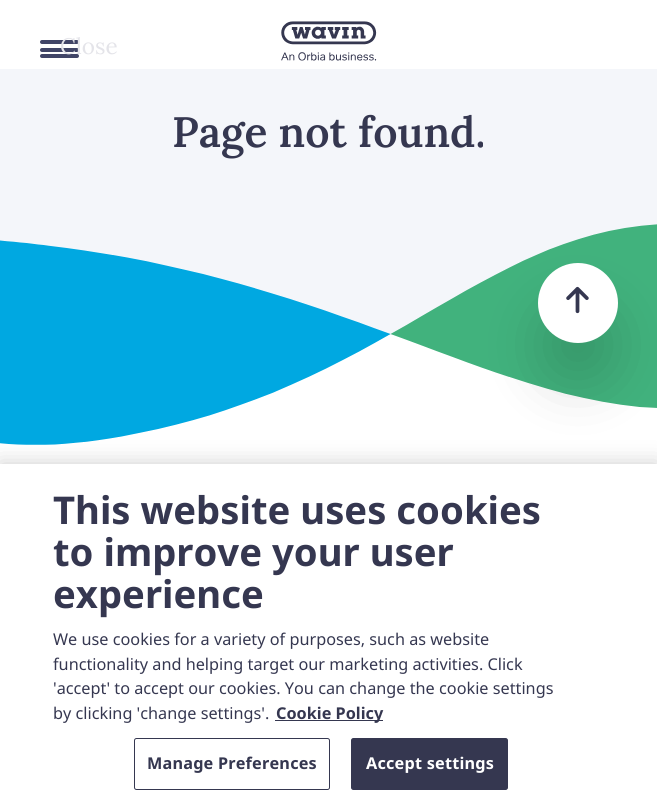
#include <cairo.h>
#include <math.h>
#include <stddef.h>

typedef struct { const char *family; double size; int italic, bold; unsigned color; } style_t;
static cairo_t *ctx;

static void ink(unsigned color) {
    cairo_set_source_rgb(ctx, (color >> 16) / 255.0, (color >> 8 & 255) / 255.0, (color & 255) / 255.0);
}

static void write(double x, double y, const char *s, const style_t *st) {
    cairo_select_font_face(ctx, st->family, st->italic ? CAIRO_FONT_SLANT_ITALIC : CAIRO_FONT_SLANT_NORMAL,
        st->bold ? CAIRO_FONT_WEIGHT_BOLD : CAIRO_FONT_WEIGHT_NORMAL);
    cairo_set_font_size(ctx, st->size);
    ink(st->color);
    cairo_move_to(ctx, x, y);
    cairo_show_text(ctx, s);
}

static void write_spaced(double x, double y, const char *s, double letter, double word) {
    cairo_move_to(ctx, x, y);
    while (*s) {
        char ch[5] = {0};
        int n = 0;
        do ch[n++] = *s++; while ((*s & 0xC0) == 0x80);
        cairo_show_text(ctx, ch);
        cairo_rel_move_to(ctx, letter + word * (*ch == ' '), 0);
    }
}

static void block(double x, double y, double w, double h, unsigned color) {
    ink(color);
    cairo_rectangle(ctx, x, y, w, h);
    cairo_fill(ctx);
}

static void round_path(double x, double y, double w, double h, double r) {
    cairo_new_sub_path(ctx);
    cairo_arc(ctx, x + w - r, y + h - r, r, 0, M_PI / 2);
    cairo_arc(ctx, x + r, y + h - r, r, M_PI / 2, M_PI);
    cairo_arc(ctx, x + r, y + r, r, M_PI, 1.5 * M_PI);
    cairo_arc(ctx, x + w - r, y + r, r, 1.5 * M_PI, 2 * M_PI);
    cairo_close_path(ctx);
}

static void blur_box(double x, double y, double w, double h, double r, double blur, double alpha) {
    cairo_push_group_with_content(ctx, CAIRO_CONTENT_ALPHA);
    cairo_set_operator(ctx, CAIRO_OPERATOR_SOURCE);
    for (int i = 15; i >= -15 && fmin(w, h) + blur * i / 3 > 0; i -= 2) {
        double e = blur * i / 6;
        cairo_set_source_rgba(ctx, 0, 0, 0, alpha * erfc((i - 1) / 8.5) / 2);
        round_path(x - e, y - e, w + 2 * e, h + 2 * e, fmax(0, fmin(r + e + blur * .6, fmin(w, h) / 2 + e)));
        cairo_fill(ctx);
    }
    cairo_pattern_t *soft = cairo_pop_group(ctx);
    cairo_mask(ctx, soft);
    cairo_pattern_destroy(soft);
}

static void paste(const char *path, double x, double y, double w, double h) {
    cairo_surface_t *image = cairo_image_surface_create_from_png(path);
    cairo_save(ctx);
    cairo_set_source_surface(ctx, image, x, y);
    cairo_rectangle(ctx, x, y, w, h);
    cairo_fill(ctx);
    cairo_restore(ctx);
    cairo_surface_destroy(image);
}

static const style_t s1 = {"Lora", 22.5, 0, 0, 0xe4e4e9};
static const style_t s2 = {"Lora SemiBold", 42.5, 0, 0, 0x353750};
static const style_t s3 = {"Noto Sans", 38.25, 0, 1, 0x353750};
static const style_t s4 = {"Noto Sans", 16.25, 0, 0, 0x353750};
static const style_t s5 = {"Noto Sans", 16.25, 0, 1, 0x353750};

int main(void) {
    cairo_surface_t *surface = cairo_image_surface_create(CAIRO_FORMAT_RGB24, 657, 810);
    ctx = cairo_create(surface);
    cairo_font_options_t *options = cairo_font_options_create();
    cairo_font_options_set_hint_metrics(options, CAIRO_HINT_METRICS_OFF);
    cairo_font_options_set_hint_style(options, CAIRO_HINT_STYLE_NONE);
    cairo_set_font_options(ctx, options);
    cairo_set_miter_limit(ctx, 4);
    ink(0xffffff);
    cairo_paint(ctx);
    ink(0x414567);
    round_path(40, 40, 39, 4, 2);
    cairo_fill(ctx);
    round_path(40, 48, 39, 4, 2);
    cairo_fill(ctx);
    round_path(40, 54, 39, 4, 2);
    cairo_fill(ctx);
    write(60, 54, "Close", &s1);
    paste("pic1.png", 281, 21, 96, 40);
    block(0, 69, 657, 266, 0xf4f6fa);
    paste("pic2.png", 0, 224, 657, 221);
    ink(0x000000);
    blur_box(538, 305, 80, 80, 40, 27.5, 0.14);
    ink(0xffffff);
    cairo_arc(ctx, 578, 303, 40, 0, 2 * M_PI);
    cairo_fill(ctx);
    paste("pic3.png", 566, 286, 23, 28);
    write(172, 147, "Page not found.", &s2);
    ink(0x000000);
    blur_box(0, 464, 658, 346, 0, 11, 0.2);
    block(0, 464, 657, 346, 0xffffff);
    write(53, 524, "This website uses cookies", &s3);
    write(53, 566, "to improve your user", &s3);
    write(53, 608, "experience", &s3);
    write(53, 645, "We use cookies for a variety of purposes, such as website", &s4);
    write(53, 670, "functionality and helping target our marketing activities. Click", &s4);
    write(53, 694, "'accept' to accept our cookies. You can change the cookie settings", &s4);
    write(53, 719, "by clicking 'change settings'.", &s4);
    block(275, 720, 108, 1, 0x353750);
    write(276, 719, "Cookie Policy", &s5);
    round_path(134.5, 738.5, 195, 51, 2);
    cairo_set_line_width(ctx, 1);
    cairo_stroke(ctx);
    write_spaced(147, 769, "Manage Preferences", 0.2, 0);
    round_path(351.5, 738.5, 156, 51, 2);
    cairo_fill_preserve(ctx);
    cairo_stroke(ctx);
    ink(0xffffff);
    write_spaced(366, 769, "Accept settings", 0.2, 0);
    cairo_surface_write_to_png(surface, "screenshot.png");
    cairo_font_options_destroy(options);
    cairo_destroy(ctx);
    cairo_surface_destroy(surface);
    return 0;
}
